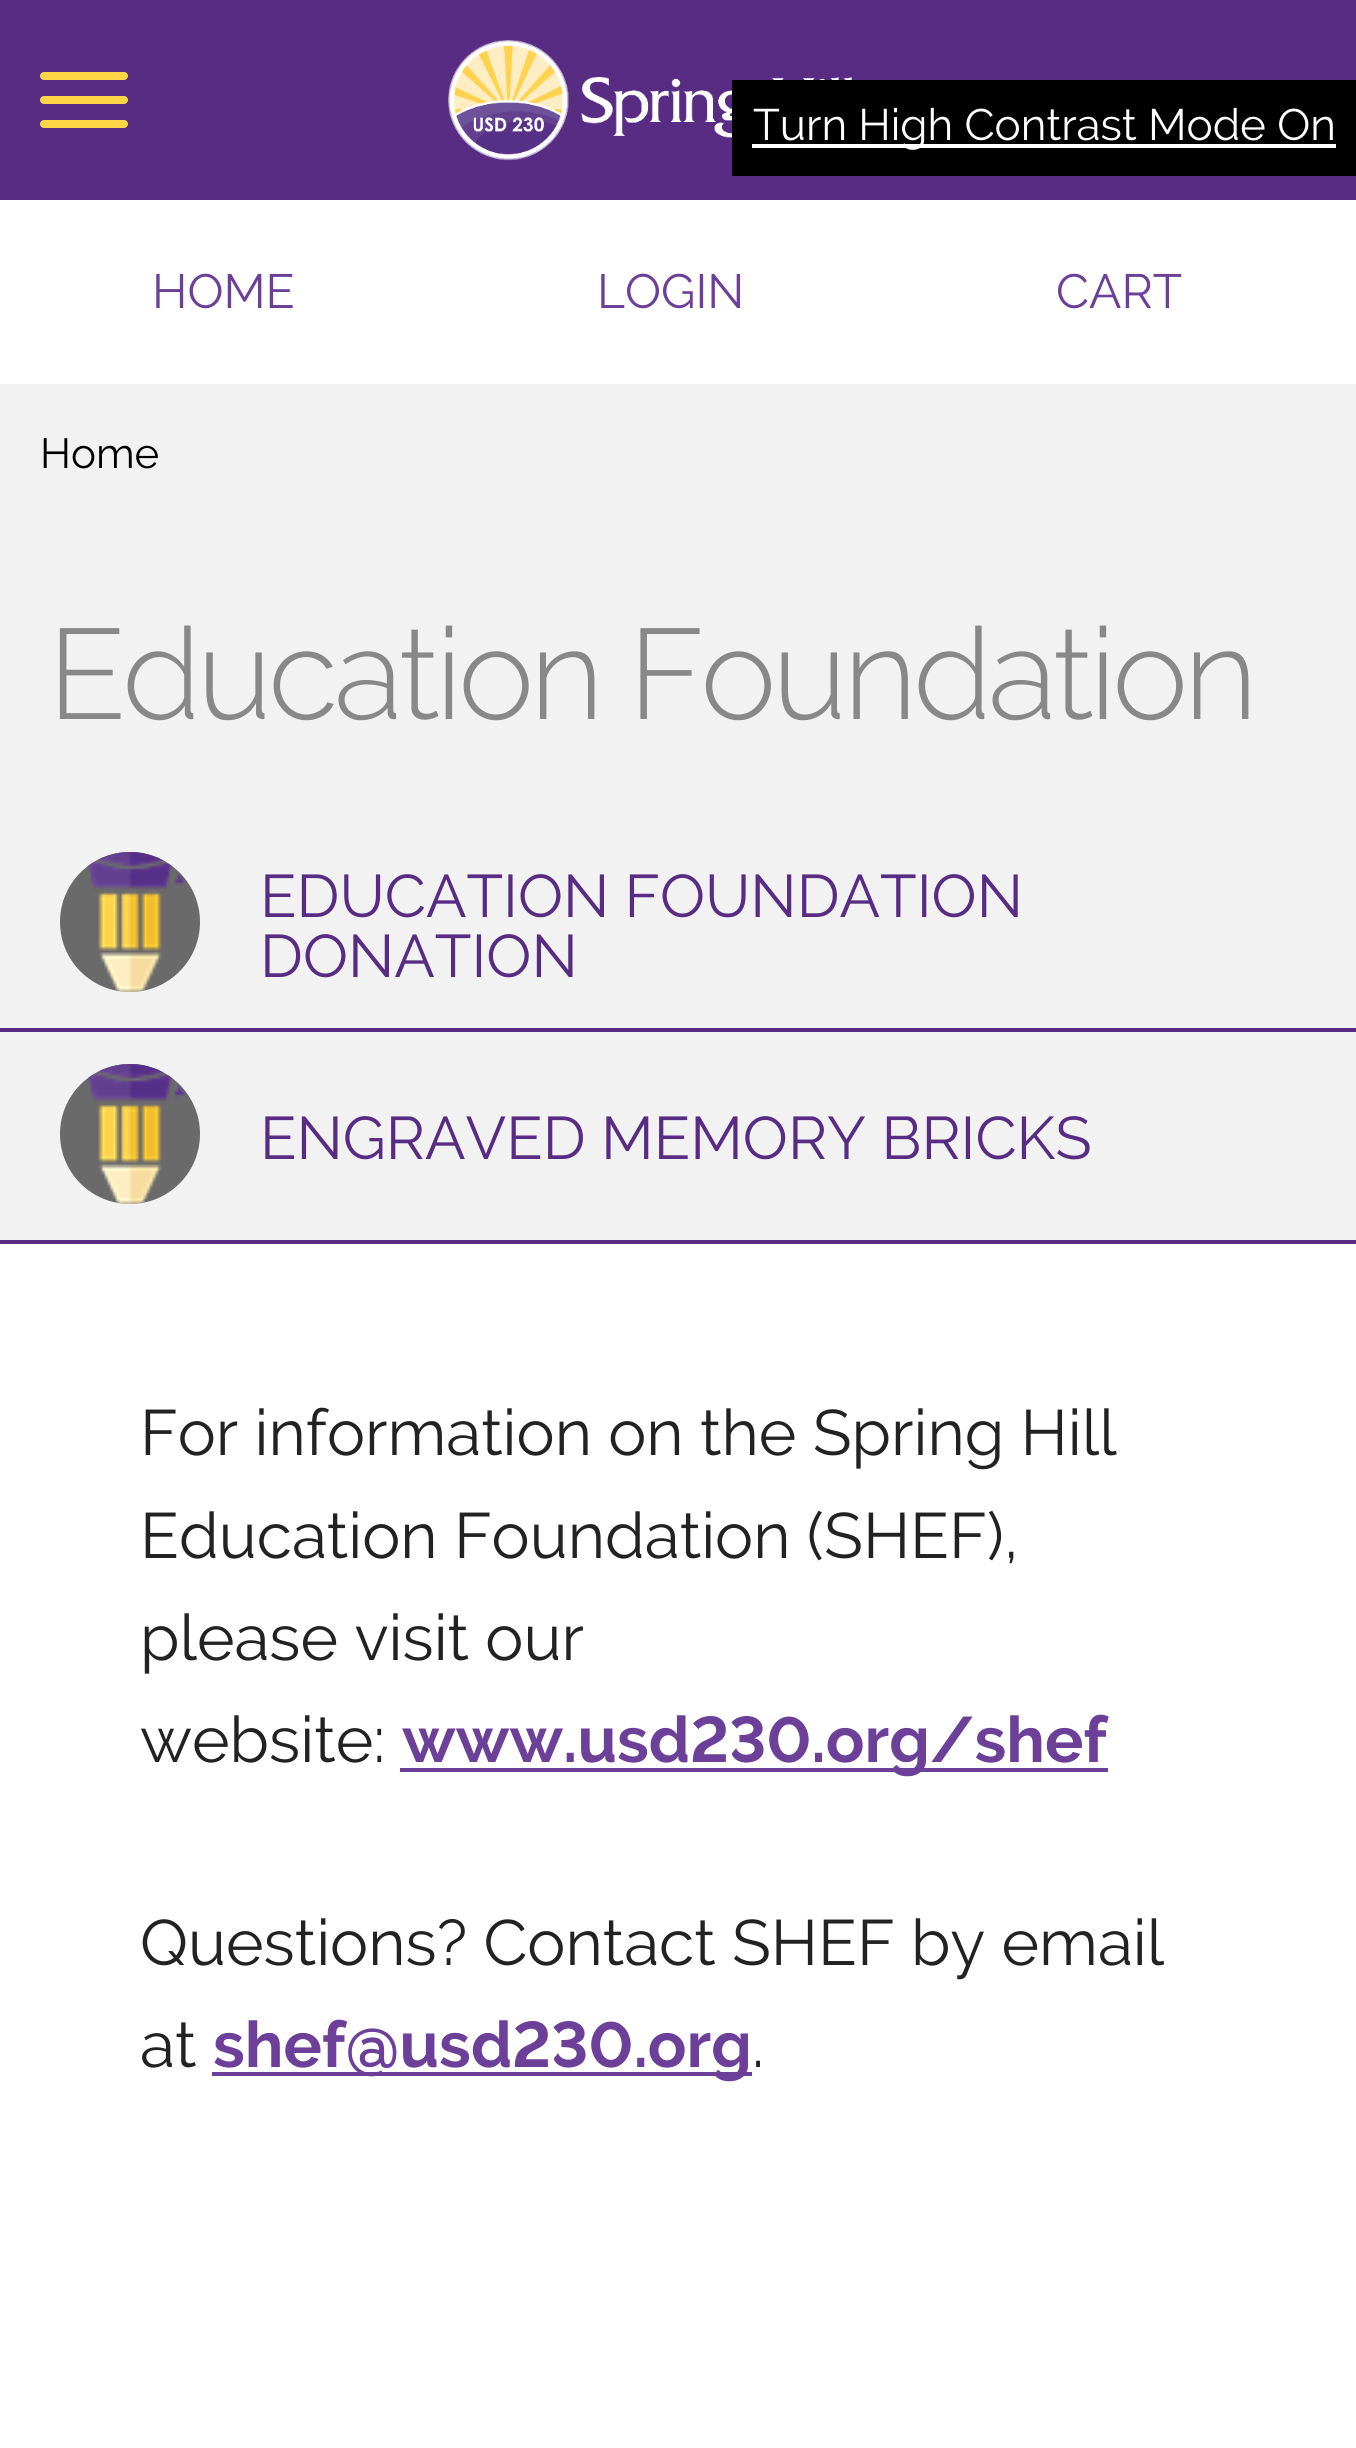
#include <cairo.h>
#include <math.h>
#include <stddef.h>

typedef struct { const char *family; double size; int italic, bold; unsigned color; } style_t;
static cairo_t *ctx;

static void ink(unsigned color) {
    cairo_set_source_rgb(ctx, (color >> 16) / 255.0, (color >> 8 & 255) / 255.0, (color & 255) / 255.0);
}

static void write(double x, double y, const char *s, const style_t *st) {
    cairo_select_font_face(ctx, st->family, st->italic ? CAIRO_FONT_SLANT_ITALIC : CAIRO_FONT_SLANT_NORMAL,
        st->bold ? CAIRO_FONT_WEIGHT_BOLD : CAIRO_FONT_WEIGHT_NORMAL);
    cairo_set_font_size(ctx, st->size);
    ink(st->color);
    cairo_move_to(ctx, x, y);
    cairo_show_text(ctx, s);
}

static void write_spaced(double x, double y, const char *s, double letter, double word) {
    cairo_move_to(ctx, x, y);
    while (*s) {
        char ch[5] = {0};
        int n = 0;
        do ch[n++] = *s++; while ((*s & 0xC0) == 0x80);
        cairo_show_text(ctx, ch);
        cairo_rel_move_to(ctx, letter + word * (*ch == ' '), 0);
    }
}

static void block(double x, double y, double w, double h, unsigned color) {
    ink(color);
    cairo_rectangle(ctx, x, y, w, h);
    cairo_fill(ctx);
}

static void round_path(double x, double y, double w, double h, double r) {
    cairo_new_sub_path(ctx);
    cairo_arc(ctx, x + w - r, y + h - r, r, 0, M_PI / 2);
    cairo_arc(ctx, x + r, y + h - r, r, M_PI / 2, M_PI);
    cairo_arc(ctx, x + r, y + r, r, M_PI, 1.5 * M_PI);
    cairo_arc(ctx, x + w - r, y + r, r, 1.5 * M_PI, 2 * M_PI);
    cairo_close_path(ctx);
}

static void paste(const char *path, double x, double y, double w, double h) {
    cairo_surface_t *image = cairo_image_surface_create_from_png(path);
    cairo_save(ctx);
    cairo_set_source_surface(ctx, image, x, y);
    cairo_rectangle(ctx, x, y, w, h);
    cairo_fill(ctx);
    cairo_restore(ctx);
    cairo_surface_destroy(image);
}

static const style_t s1 = {"Raleway", 44, 0, 0, 0xffffff};
static const style_t s2 = {"Raleway", 48, 0, 0, 0x6c3f99};
static const style_t s3 = {"Raleway", 42, 0, 0, 0x000000};
static const style_t s4 = {"Raleway", 60, 0, 0, 0x582c83};
static const style_t s5 = {"Raleway", 64, 0, 0, 0x222222};
static const style_t s6 = {"Raleway", 64, 0, 1, 0x6c3f99};

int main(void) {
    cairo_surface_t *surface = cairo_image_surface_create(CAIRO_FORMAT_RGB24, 1356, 2448);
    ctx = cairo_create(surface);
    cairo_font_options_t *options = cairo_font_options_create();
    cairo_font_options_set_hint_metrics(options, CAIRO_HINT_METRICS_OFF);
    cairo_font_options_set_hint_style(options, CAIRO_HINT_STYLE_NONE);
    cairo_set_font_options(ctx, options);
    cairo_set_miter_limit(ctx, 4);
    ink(0xffffff);
    cairo_paint(ctx);
    block(0, 0, 1356, 200, 0x582c83);
    ink(0xfcd647);
    round_path(40, 72, 88, 8, 4);
    cairo_fill(ctx);
    round_path(40, 96, 88, 8, 4);
    cairo_fill(ctx);
    round_path(40, 120, 88, 8, 4);
    cairo_fill(ctx);
    paste("pic1.png", 448, 40, 404, 121);
    block(732, 80, 624, 96, 0x000000);
    block(752, 144, 584, 4, 0xffffff);
    write(753, 140, "Turn High Contrast Mode On", &s1);
    write(152, 308, "HOME", &s2);
    write(597, 308, "LOGIN", &s2);
    write(1056, 308, "CART", &s2);
    block(0, 384, 1356, 856, 0xf2f2f2);
    write(40, 468, "Home", &s3);
    cairo_select_font_face(ctx, "Raleway Light", CAIRO_FONT_SLANT_NORMAL, CAIRO_FONT_WEIGHT_NORMAL);
    cairo_set_font_size(ctx, 128);
    ink(0x888888);
    write_spaced(48, 719, "Education Foundation", -4, 0);
    block(0, 1028, 1356, 4, 0x582c83);
    ink(0x6b6a6a);
    cairo_new_path(ctx);
    cairo_arc(ctx, 130, 922, 70, 0, 2 * M_PI);
    cairo_fill(ctx);
    paste("pic2.png", 87, 852, 99, 140);
    write(260, 917, "EDUCATION FOUNDATION", &s4);
    write(260, 977, "DONATION", &s4);
    block(0, 1240, 1356, 4, 0x582c83);
    ink(0x6b6a6a);
    cairo_new_path(ctx);
    cairo_arc(ctx, 130, 1134, 70, 0, 2 * M_PI);
    cairo_fill(ctx);
    paste("pic2.png", 87, 1064, 99, 140);
    write(260, 1159, "ENGRAVED MEMORY BRICKS", &s4);
    write(140, 1455, "For information on the Spring Hill", &s5);
    write(140, 1558, "Education Foundation (SHEF),", &s5);
    write(140, 1660, "please visit our", &s5);
    write(140, 1762, "website:", &s5);
    block(400, 1768, 708, 4, 0x6c3f99);
    write(402, 1762, "www.usd230.org/shef", &s6);
    write(140, 1965, "Questions? Contact SHEF by email", &s5);
    write(140, 2067, "at", &s5);
    block(212, 2072, 540, 4, 0x6c3f99);
    write(213, 2067, "shef@usd230.org", &s6);
    write(752, 2067, ".", &s5);
    cairo_surface_write_to_png(surface, "screenshot.png");
    cairo_font_options_destroy(options);
    cairo_destroy(ctx);
    cairo_surface_destroy(surface);
    return 0;
}
